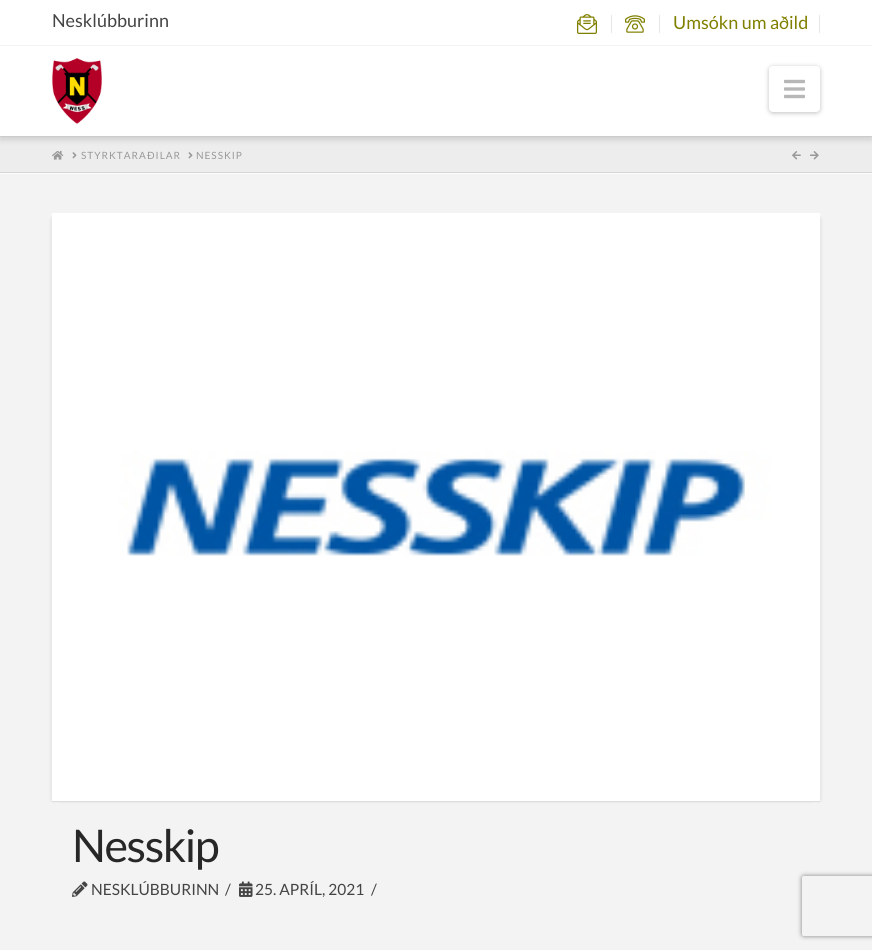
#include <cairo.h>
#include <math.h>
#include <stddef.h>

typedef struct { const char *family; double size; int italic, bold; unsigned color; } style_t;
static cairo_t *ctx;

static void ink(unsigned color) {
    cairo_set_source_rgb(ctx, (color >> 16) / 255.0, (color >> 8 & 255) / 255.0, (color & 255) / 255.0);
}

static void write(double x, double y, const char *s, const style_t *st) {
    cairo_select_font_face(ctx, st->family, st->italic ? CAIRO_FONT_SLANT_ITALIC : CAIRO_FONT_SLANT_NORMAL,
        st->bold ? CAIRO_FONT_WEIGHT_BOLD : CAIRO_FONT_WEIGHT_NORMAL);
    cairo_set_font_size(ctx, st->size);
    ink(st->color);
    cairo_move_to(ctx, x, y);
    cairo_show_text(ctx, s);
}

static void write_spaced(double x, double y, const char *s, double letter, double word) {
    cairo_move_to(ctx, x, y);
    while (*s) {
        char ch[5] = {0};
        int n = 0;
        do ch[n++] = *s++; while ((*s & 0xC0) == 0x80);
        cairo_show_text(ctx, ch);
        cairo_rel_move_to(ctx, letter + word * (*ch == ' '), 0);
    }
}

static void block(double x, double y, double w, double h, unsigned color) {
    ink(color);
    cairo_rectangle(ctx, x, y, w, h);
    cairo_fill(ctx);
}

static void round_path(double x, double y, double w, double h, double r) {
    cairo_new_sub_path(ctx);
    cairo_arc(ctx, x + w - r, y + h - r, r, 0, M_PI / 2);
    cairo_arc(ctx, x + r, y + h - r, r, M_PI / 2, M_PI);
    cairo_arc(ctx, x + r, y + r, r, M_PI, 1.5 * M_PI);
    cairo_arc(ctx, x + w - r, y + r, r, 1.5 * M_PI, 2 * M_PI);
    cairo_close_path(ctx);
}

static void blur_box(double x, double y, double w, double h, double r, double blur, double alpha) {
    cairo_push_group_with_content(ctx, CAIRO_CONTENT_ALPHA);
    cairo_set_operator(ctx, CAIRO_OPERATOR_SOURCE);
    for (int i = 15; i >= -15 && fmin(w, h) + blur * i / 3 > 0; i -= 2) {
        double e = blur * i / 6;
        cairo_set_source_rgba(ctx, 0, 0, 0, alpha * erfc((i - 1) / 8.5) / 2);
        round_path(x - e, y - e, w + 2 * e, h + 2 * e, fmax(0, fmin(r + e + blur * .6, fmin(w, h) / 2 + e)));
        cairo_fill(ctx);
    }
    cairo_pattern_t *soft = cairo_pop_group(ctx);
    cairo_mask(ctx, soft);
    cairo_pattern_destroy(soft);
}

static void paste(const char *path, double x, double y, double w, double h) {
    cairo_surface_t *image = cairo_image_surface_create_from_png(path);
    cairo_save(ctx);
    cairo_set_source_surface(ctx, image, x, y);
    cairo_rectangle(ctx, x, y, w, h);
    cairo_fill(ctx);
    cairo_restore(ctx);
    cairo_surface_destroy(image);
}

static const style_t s1 = {"Lato", 18, 0, 0, 0x444444};
static const style_t s2 = {"Lato", 18, 0, 0, 0x808000};
static const style_t s3 = {"Lato", 15.5, 0, 0, 0x444444};

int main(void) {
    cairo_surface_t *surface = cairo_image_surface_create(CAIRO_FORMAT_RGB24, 872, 950);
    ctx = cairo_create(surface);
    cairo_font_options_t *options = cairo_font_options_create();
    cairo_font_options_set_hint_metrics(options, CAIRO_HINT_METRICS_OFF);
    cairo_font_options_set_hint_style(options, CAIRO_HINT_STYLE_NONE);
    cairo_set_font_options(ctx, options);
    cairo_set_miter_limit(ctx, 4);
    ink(0xf3f3f3);
    cairo_paint(ctx);
    block(0, 137, 872, 35, 0xededed);
    ink(0x000000);
    blur_box(0, 49, 872, 91, 0, 3, 0.13);
    block(0, 0, 872, 45, 0xffffff);
    block(0, 45, 872, 1, 0xf2f2f2);
    write(52, 27, "Nesklúbburinn", &s1);
    paste("pic1.png", 577, 14, 20, 20);
    block(611, 15, 1, 18, 0xe5e5e5);
    paste("pic2.png", 625, 15, 20, 18);
    block(659, 15, 1, 18, 0xe5e5e5);
    write(673, 29, "Umsókn um aðild", &s2);
    block(819, 15, 1, 18, 0xe5e5e5);
    block(0, 46, 872, 90, 0xffffff);
    block(0, 136, 872, 1, 0xcccccc);
    paste("pic3.png", 52, 58, 50, 66);
    ink(0x000000);
    blur_box(769, 67, 51, 46, 4, 2.5, 0.25);
    ink(0xffffff);
    round_path(769, 66, 51, 46, 4);
    cairo_fill(ctx);
    paste("pic4.png", 784, 79, 21, 20);
    block(0, 173, 872, 1, 0xfcfcfc);
    block(0, 172, 872, 1, 0xd5d5d5);
    paste("pic5.png", 52, 150, 12, 10);
    paste("pic6.png", 72, 152, 5, 7);
    cairo_set_font_size(ctx, 10);
    ink(0x999999);
    write_spaced(81, 159, "STYRKTARAÐILAR", 1, 0);
    paste("pic6.png", 188, 152, 5, 7);
    write_spaced(196, 159, "NESSKIP", 1, 0);
    paste("pic7.png", 792, 151, 9, 9);
    paste("pic8.png", 810, 151, 9, 9);
    ink(0x000000);
    blur_box(52, 219, 760, 581, 0, 2, 0.13);
    blur_box(60, 219, 760, 581, 0, 2, 0.13);
    block(52, 801, 768, 1, 0xdddddd);
    paste("pic9.png", 52, 213, 768, 588);
    cairo_set_font_size(ctx, 45);
    ink(0x272727);
    write_spaced(72, 862, "Nesskip", -1.5, 0);
    paste("pic10.png", 72, 881, 16, 16);
    write(91, 895, "NESKLÚBBURINN", &s3);
    write(225, 895, "/", &s3);
    paste("pic11.png", 239, 881, 14, 16);
    write(255, 895, "25. APRÍL, 2021", &s3);
    write(371, 895, "/", &s3);
    cairo_save(ctx);
    cairo_set_fill_rule(ctx, CAIRO_FILL_RULE_EVEN_ODD);
    cairo_new_path(ctx);
    cairo_move_to(ctx, 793, 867);
    cairo_line_to(ctx, 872, 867);
    cairo_line_to(ctx, 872, 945);
    cairo_line_to(ctx, 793, 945);
    cairo_close_path(ctx);
    cairo_move_to(ctx, 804, 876);
    cairo_line_to(ctx, 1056, 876);
    cairo_curve_to(ctx, 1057, 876, 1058, 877, 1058, 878);
    cairo_line_to(ctx, 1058, 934);
    cairo_curve_to(ctx, 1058, 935, 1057, 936, 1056, 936);
    cairo_line_to(ctx, 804, 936);
    cairo_curve_to(ctx, 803, 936, 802, 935, 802, 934);
    cairo_line_to(ctx, 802, 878);
    cairo_curve_to(ctx, 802, 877, 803, 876, 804, 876);
    cairo_close_path(ctx);
    cairo_clip(ctx);
    ink(0x808080);
    blur_box(802, 876, 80, 60, 2, 2.5, 1);
    cairo_restore(ctx);
    cairo_surface_write_to_png(surface, "screenshot.png");
    cairo_font_options_destroy(options);
    cairo_destroy(ctx);
    cairo_surface_destroy(surface);
    return 0;
}
